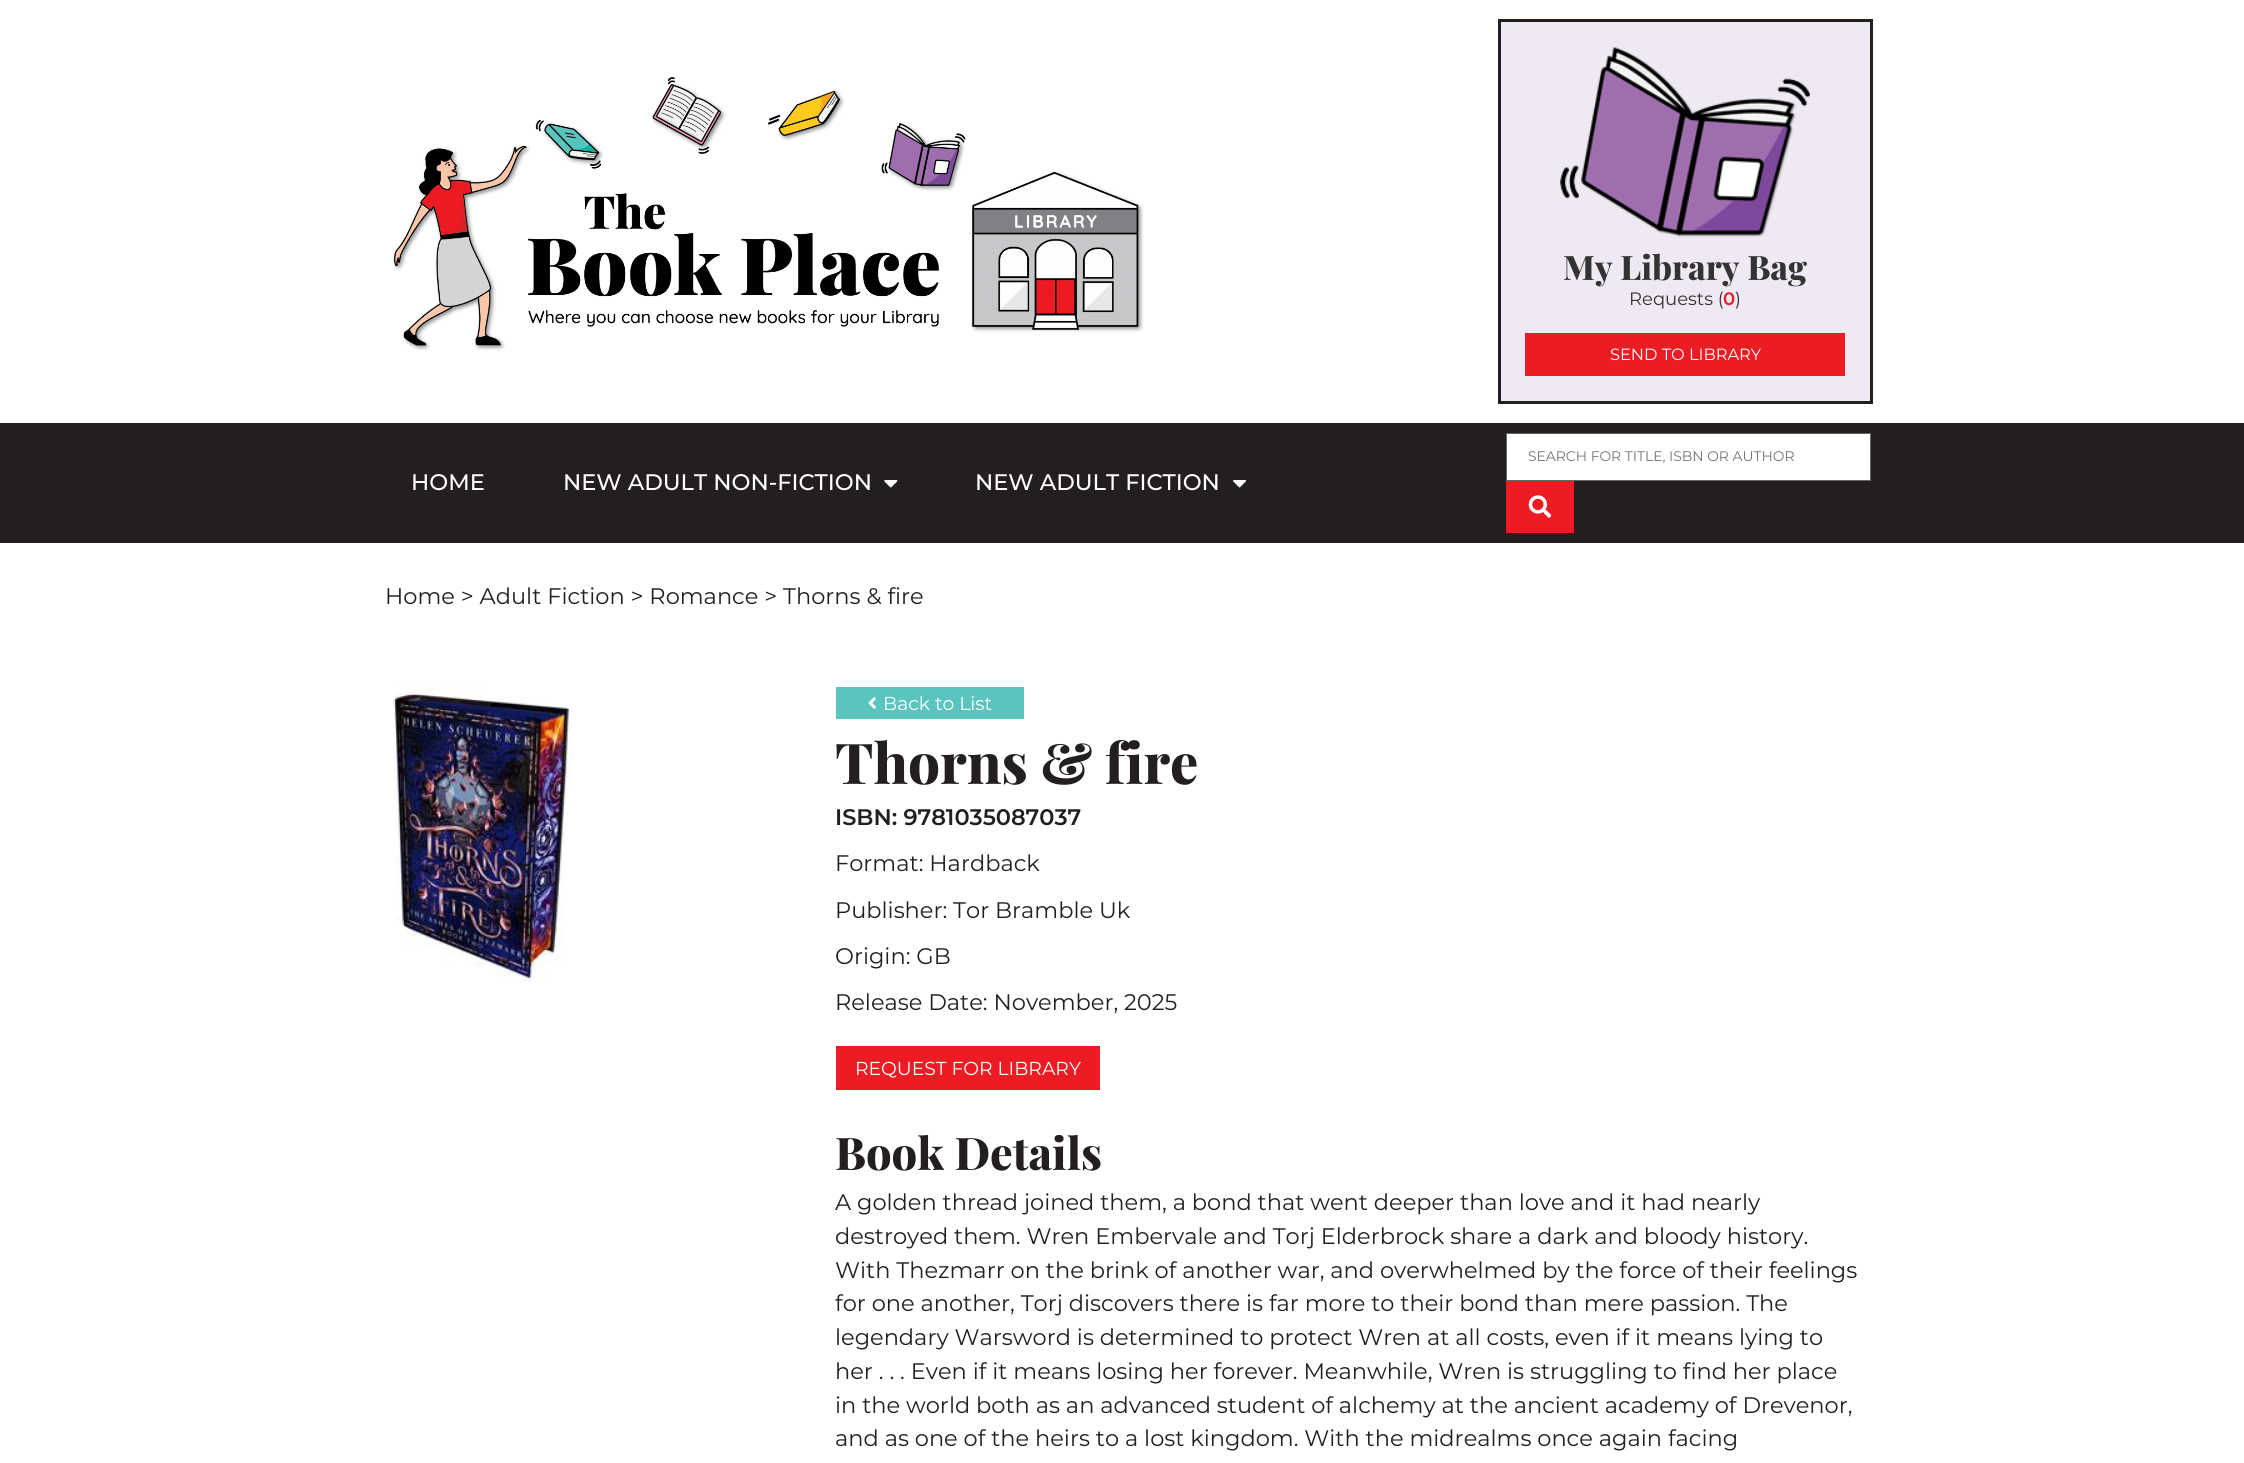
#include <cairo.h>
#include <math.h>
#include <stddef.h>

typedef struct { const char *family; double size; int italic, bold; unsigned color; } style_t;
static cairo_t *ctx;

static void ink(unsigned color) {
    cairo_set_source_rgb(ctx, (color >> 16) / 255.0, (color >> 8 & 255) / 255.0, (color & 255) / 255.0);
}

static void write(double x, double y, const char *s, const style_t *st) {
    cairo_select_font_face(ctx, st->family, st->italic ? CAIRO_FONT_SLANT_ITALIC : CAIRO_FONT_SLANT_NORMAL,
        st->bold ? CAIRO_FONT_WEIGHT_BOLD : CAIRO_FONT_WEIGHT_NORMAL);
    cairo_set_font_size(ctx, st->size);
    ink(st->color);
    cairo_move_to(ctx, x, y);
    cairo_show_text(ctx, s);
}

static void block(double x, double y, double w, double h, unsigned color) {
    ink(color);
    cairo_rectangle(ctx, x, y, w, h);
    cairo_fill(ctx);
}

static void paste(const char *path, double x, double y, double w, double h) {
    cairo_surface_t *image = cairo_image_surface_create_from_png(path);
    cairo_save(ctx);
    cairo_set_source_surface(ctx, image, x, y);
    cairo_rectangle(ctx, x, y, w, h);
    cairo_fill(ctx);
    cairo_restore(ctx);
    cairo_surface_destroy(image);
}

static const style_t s1 = {"Playfair Display ExtraBold", 33.75, 0, 0, 0x333333};
static const style_t s2 = {"Montserrat", 18, 0, 0, 0x333333};
static const style_t s3 = {"Montserrat SemiBold", 18, 0, 0, 0xed1c24};
static const style_t s4 = {"Montserrat", 16.25, 0, 0, 0xffffff};
static const style_t s5 = {"Montserrat", 13.9, 0, 0, 0x757575};
static const style_t s6 = {"Montserrat Medium", 22.5, 0, 0, 0xffffff};
static const style_t s7 = {"Montserrat", 22.5, 0, 0, 0x231f20};
static const style_t s8 = {"Montserrat", 18.75, 0, 0, 0xffffff};
static const style_t s9 = {"Playfair Display ExtraBold", 56.25, 0, 0, 0x231f20};
static const style_t s10 = {"Montserrat SemiBold", 22.5, 0, 0, 0x231f20};
static const style_t s11 = {"Playfair Display ExtraBold", 45, 0, 0, 0x231f20};

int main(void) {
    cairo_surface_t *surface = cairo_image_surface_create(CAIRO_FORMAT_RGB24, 2244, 1463);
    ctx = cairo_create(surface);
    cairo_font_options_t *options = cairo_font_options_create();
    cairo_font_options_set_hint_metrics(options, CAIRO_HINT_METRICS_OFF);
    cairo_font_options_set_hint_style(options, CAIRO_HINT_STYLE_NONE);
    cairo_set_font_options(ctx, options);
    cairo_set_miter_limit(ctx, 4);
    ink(0xffffff);
    cairo_paint(ctx);
    paste("pic1.png", 393, 77, 751, 274);
    ink(0xefe9f4);
    cairo_rectangle(ctx, 1499.5, 20.5, 372, 382);
    cairo_fill_preserve(ctx);
    ink(0x231f20);
    cairo_set_line_width(ctx, 3);
    cairo_stroke(ctx);
    paste("pic2.png", 1560, 47, 250, 190);
    write(1563, 280, "My Library Bag", &s1);
    write(1629, 305, "Requests (", &s2);
    write(1723, 305, "0", &s3);
    write(1735, 305, ")", &s2);
    block(1525, 333, 320, 43, 0xed1c24);
    write(1610, 360, "SEND TO LIBRARY", &s4);
    block(0, 423, 2244, 120, 0x231f20);
    ink(0xffffff);
    cairo_rectangle(ctx, 1506.5, 433.5, 364, 47);
    cairo_fill_preserve(ctx);
    ink(0x666666);
    cairo_set_line_width(ctx, 1);
    cairo_stroke(ctx);
    write(1528, 461, "SEARCH FOR TITLE, ISBN OR AUTHOR", &s5);
    block(1506, 481, 68, 52, 0xed1c24);
    paste("pic3.png", 1528, 495, 24, 23);
    write(411, 490, "HOME", &s6);
    write(563, 490, "NEW ADULT NON-FICTION", &s6);
    paste("pic4.png", 884, 480, 14, 8);
    write(975, 490, "NEW ADULT FICTION", &s6);
    paste("pic5.png", 1233, 480, 13, 8);
    write(385, 604, "Home > Adult Fiction > Romance > Thorns & fire", &s7);
    paste("pic6.png", 393, 686, 180, 297);
    block(836, 687, 188, 32, 0x5ac4be);
    paste("pic7.png", 868, 697, 8, 12);
    write(883, 710, "Back to List", &s8);
    write(835, 784, "Thorns & fire", &s9);
    write(835, 825, "ISBN: 9781035087037", &s10);
    write(835, 871, "Format: Hardback", &s7);
    write(835, 918, "Publisher: Tor Bramble Uk", &s7);
    write(835, 964, "Origin: GB", &s7);
    write(835, 1010, "Release Date: November, 2025", &s7);
    block(836, 1046, 264, 44, 0xed1c24);
    write(855, 1075, "REQUEST FOR LIBRARY", &s8);
    write(835, 1170, "Book Details", &s11);
    write(835, 1210, "A golden thread joined them, a bond that went deeper than love and it had nearly", &s7);
    write(835, 1244, "destroyed them. Wren Embervale and Torj Elderbrock share a dark and bloody history.", &s7);
    write(835, 1278, "With Thezmarr on the brink of another war, and overwhelmed by the force of their feelings", &s7);
    write(835, 1311, "for one another, Torj discovers there is far more to their bond than mere passion. The", &s7);
    write(835, 1345, "legendary Warsword is determined to protect Wren at all costs, even if it means lying to", &s7);
    write(835, 1379, "her . . . Even if it means losing her forever. Meanwhile, Wren is struggling to find her place", &s7);
    write(835, 1413, "in the world both as an advanced student of alchemy at the ancient academy of Drevenor,", &s7);
    write(835, 1446, "and as one of the heirs to a lost kingdom. With the midrealms once again facing", &s7);
    cairo_surface_write_to_png(surface, "screenshot.png");
    cairo_font_options_destroy(options);
    cairo_destroy(ctx);
    cairo_surface_destroy(surface);
    return 0;
}
